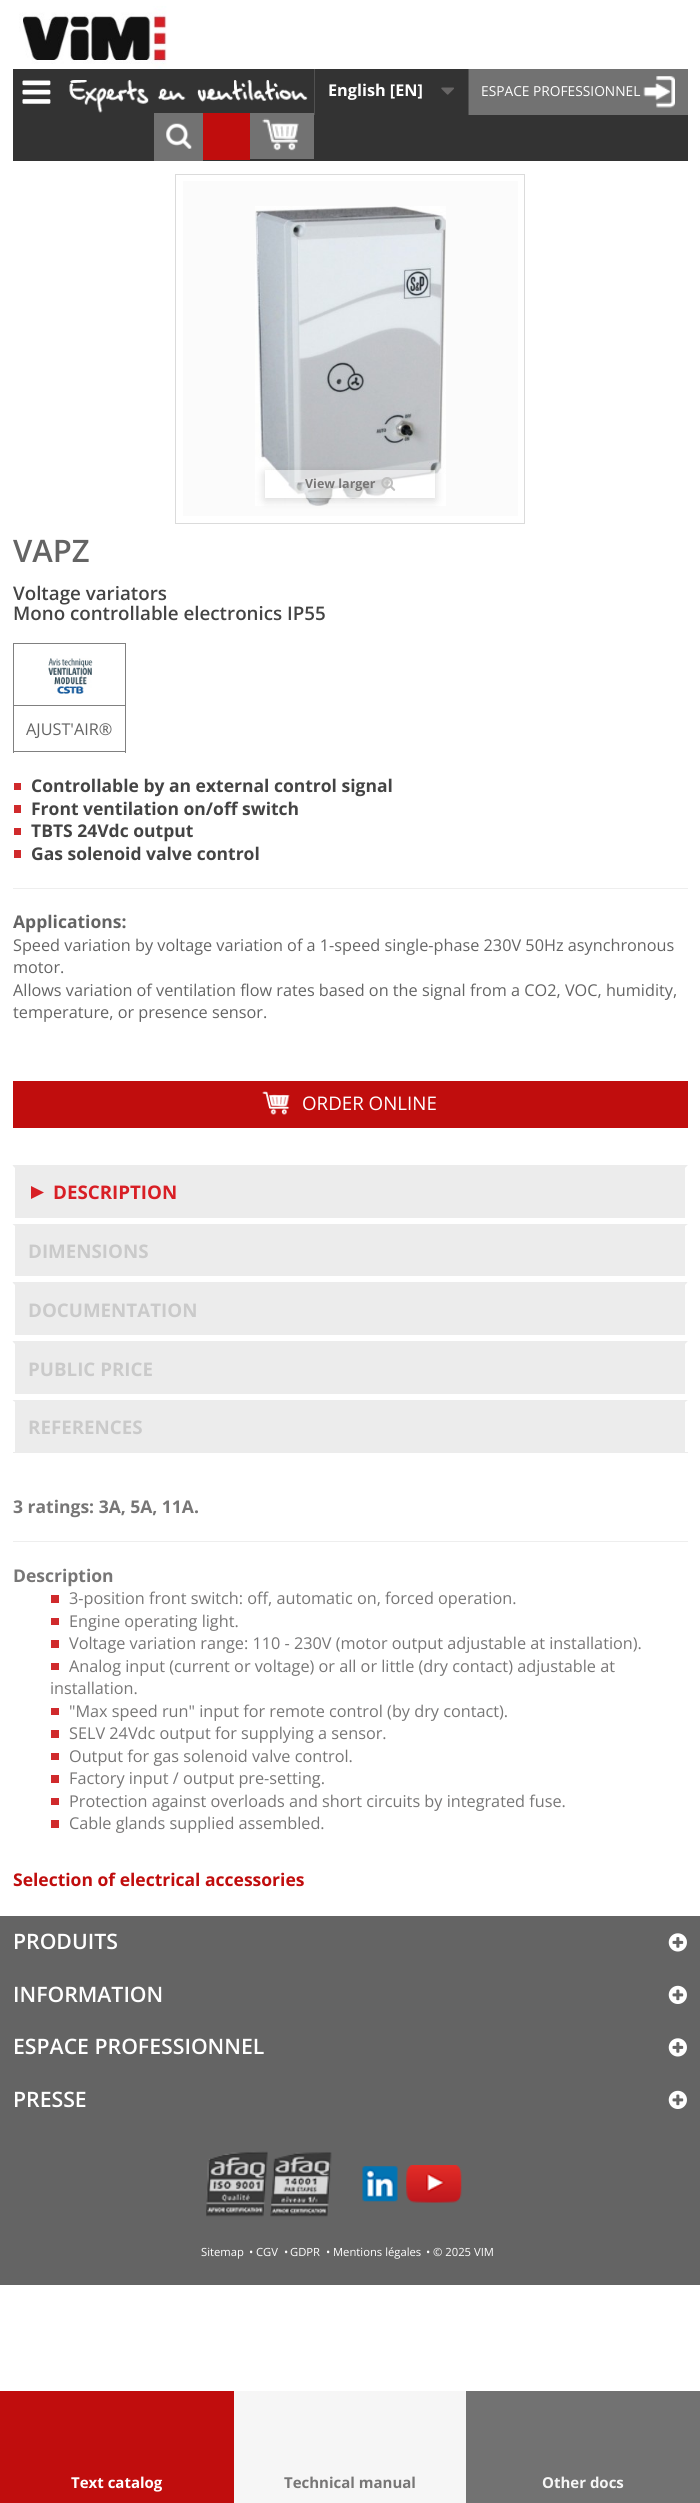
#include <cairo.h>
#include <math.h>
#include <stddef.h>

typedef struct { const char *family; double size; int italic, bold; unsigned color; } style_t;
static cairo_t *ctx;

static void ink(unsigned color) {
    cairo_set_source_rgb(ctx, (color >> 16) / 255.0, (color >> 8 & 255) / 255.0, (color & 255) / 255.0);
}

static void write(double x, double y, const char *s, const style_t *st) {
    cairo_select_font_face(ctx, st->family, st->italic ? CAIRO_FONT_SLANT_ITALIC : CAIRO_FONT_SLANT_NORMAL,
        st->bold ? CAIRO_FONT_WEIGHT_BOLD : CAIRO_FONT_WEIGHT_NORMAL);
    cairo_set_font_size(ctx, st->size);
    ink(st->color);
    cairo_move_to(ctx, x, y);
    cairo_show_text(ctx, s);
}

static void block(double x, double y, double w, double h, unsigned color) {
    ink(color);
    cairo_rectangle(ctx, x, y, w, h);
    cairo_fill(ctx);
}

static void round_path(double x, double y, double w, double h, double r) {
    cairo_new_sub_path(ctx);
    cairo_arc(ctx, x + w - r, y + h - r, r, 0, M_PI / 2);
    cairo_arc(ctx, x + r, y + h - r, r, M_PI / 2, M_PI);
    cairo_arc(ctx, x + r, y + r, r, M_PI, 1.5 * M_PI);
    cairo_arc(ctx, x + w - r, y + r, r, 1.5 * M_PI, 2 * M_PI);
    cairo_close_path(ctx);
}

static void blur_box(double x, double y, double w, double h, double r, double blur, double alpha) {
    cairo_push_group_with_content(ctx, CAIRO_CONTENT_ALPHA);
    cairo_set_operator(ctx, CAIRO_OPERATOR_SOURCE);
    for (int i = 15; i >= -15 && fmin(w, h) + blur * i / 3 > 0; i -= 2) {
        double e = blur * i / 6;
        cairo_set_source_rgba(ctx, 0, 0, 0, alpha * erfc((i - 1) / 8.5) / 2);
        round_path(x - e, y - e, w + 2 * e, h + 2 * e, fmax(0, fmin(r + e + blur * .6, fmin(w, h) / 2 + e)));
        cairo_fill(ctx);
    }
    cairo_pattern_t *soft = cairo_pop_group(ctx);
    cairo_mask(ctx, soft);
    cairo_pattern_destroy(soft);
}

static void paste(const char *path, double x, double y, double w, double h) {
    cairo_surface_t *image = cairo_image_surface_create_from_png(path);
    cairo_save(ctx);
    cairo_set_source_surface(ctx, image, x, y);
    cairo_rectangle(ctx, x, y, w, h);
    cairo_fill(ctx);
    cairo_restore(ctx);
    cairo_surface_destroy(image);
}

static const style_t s1 = {"Open Sans", 16.25, 0, 1, 0xffffff};
static const style_t s2 = {"Open Sans", 13.75, 0, 0, 0xffffff};
static const style_t s3 = {"Open Sans", 12.5, 0, 1, 0x777676};
static const style_t s4 = {"Open Sans SemiBold", 31, 0, 0, 0x646464};
static const style_t s5 = {"Open Sans SemiBold", 18.75, 0, 0, 0x444444};
static const style_t s6 = {"Open Sans", 16.25, 0, 0, 0x646464};
static const style_t s7 = {"Open Sans", 17.5, 0, 1, 0x444444};
static const style_t s8 = {"Open Sans", 17.5, 0, 1, 0x646464};
static const style_t s9 = {"Open Sans", 18.75, 0, 0, 0xffffff};
static const style_t s10 = {"Open Sans", 18.75, 0, 1, 0xd81f25};
static const style_t s11 = {"Open Sans", 18.75, 0, 1, 0xcacaca};
static const style_t s12 = {"Open Sans", 17.5, 0, 1, 0x777676};
static const style_t s13 = {"Open Sans", 16.25, 0, 0, 0x777676};
static const style_t s14 = {"Open Sans", 17.5, 0, 1, 0xc00d0d};
static const style_t s15 = {"Open Sans", 15, 0, 1, 0xffffff};
static const style_t s16 = {"Open Sans", 15, 0, 1, 0x777676};
static const style_t s17 = {"Open Sans", 15, 0, 1, 0xf6f6f6};
static const style_t s18 = {"Open Sans SemiBold", 21.25, 0, 0, 0xffffff};
static const style_t s19 = {"Open Sans", 11.25, 0, 0, 0xffffff};

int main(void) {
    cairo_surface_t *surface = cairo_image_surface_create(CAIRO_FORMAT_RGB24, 700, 2503);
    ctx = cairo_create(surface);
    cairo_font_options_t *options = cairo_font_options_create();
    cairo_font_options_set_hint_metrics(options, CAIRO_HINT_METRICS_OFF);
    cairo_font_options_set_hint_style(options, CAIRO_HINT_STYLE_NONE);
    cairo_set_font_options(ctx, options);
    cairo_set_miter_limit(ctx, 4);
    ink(0xffffff);
    cairo_paint(ctx);
    paste("pic1.png", 19, 6, 148, 63);
    block(13, 69, 675, 92, 0x333333);
    paste("pic2.png", 22, 80, 29, 24);
    paste("pic3.png", 69, 80, 239, 33);
    block(314, 69, 1, 46, 0x515151);
    write(328, 96, "English [EN]", &s1);
    paste("pic4.png", 441, 87, 13, 8);
    block(469, 69, 219, 46, 0x727272);
    block(468, 69, 1, 46, 0x515151);
    write(481, 96, "ESPACE PROFESSIONNEL", &s2);
    paste("pic5.png", 643, 76, 32, 32);
    block(154, 113, 49, 48, 0x727272);
    paste("pic6.png", 166, 123, 26, 26);
    block(203, 113, 47, 47, 0xc00d0d);
    block(250, 113, 64, 46, 0x727272);
    paste("pic7.png", 262, 118, 37, 33);
    cairo_rectangle(ctx, 175.5, 174.5, 349, 349);
    ink(0xdbdbdb);
    cairo_set_line_width(ctx, 1);
    cairo_stroke(ctx);
    block(183, 181, 335, 335, 0xfbfbfb);
    paste("pic8.png", 255, 206, 191, 300);
    cairo_save(ctx);
    cairo_set_fill_rule(ctx, CAIRO_FILL_RULE_EVEN_ODD);
    cairo_new_path(ctx);
    cairo_move_to(ctx, 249, 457);
    cairo_line_to(ctx, 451, 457);
    cairo_line_to(ctx, 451, 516);
    cairo_line_to(ctx, 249, 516);
    cairo_close_path(ctx);
    cairo_move_to(ctx, 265, 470);
    cairo_line_to(ctx, 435, 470);
    cairo_line_to(ctx, 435, 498);
    cairo_line_to(ctx, 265, 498);
    cairo_close_path(ctx);
    cairo_clip(ctx);
    ink(0x000000);
    blur_box(265, 473, 170, 27, 0, 5, 0.16);
    cairo_restore(ctx);
    cairo_set_source_rgba(ctx, 1, 1, 1, 0.5);
    cairo_rectangle(ctx, 265, 470, 170, 28);
    cairo_fill(ctx);
    write(305, 488, "View larger", &s3);
    paste("pic9.png", 381, 477, 15, 14);
    write(13, 562, "VAPZ", &s4);
    write(13, 600, "Voltage variators", &s5);
    write(13, 620, "Mono controllable electronics IP55", &s5);
    block(13, 643, 113, 1, 0x808080);
    block(13, 705, 113, 1, 0x808080);
    block(125, 705, 1, 48, 0x808080);
    block(125, 643, 1, 63, 0x808080);
    block(13, 751, 113, 1, 0x808080);
    block(13, 705, 1, 48, 0x808080);
    block(13, 643, 1, 63, 0x808080);
    paste("pic10.png", 48, 658, 45, 36);
    write(26, 735, "AJUST'AIR®", &s6);
    block(14, 783, 7, 7, 0xd02a2c);
    write(31, 792, "Controllable by an external control signal", &s7);
    block(14, 805, 7, 8, 0xd02a2c);
    write(31, 815, "Front ventilation on/off switch", &s7);
    block(14, 828, 7, 7, 0xd02a2c);
    write(31, 837, "TBTS 24Vdc output", &s7);
    block(14, 850, 7, 8, 0xd02a2c);
    write(31, 860, "Gas solenoid valve control", &s7);
    block(13, 888, 675, 1, 0xeeeeee);
    write(13, 928, "Applications:", &s8);
    write(13, 951, "Speed variation by voltage variation of a 1-speed single-phase 230V 50Hz asynchronous", &s6);
    write(13, 973, "motor.", &s6);
    write(13, 996, "Allows variation of ventilation flow rates based on the signal from a CO2, VOC, humidity,", &s6);
    write(13, 1018, "temperature, or presence sensor.", &s6);
    block(13, 1081, 675, 47, 0xc00d0d);
    paste("pic11.png", 262, 1091, 28, 24);
    write(302, 1110, "ORDER ONLINE", &s9);
    block(13, 1165, 675, 53, 0xececec);
    cairo_new_path(ctx);
    cairo_move_to(ctx, 12, 1165);
    cairo_line_to(ctx, 688, 1165);
    cairo_line_to(ctx, 685, 1168);
    cairo_line_to(ctx, 15, 1168);
    cairo_close_path(ctx);
    cairo_fill(ctx);
    ink(0xffffff);
    cairo_new_path(ctx);
    cairo_move_to(ctx, 688, 1165);
    cairo_line_to(ctx, 688, 1218);
    cairo_line_to(ctx, 685, 1218);
    cairo_line_to(ctx, 685, 1168);
    cairo_close_path(ctx);
    cairo_fill(ctx);
    cairo_new_path(ctx);
    cairo_move_to(ctx, 12, 1218);
    cairo_line_to(ctx, 12, 1165);
    cairo_line_to(ctx, 15, 1168);
    cairo_line_to(ctx, 15, 1218);
    cairo_close_path(ctx);
    cairo_fill(ctx);
    ink(0xd81f25);
    cairo_new_path(ctx);
    cairo_move_to(ctx, 31, 1199);
    cairo_line_to(ctx, 31, 1186);
    cairo_line_to(ctx, 44, 1192.5);
    cairo_close_path(ctx);
    cairo_fill(ctx);
    write(53, 1199, "DESCRIPTION", &s10);
    block(13, 1224, 675, 52, 0xececec);
    cairo_new_path(ctx);
    cairo_move_to(ctx, 12, 1224);
    cairo_line_to(ctx, 688, 1224);
    cairo_line_to(ctx, 685, 1226);
    cairo_line_to(ctx, 15, 1226);
    cairo_close_path(ctx);
    cairo_fill(ctx);
    ink(0xffffff);
    cairo_new_path(ctx);
    cairo_move_to(ctx, 688, 1224);
    cairo_line_to(ctx, 688, 1276);
    cairo_line_to(ctx, 685, 1276);
    cairo_line_to(ctx, 685, 1226);
    cairo_close_path(ctx);
    cairo_fill(ctx);
    cairo_new_path(ctx);
    cairo_move_to(ctx, 12, 1276);
    cairo_line_to(ctx, 12, 1224);
    cairo_line_to(ctx, 15, 1226);
    cairo_line_to(ctx, 15, 1276);
    cairo_close_path(ctx);
    cairo_fill(ctx);
    write(28, 1258, "DIMENSIONS", &s11);
    block(13, 1283, 674, 52, 0xececec);
    cairo_new_path(ctx);
    cairo_move_to(ctx, 12, 1282);
    cairo_line_to(ctx, 688, 1282);
    cairo_line_to(ctx, 685, 1285);
    cairo_line_to(ctx, 15, 1285);
    cairo_close_path(ctx);
    cairo_fill(ctx);
    ink(0xffffff);
    cairo_new_path(ctx);
    cairo_move_to(ctx, 688, 1282);
    cairo_line_to(ctx, 688, 1335);
    cairo_line_to(ctx, 685, 1335);
    cairo_line_to(ctx, 685, 1285);
    cairo_close_path(ctx);
    cairo_fill(ctx);
    cairo_new_path(ctx);
    cairo_move_to(ctx, 12, 1335);
    cairo_line_to(ctx, 12, 1282);
    cairo_line_to(ctx, 15, 1285);
    cairo_line_to(ctx, 15, 1335);
    cairo_close_path(ctx);
    cairo_fill(ctx);
    write(28, 1317, "DOCUMENTATION", &s11);
    block(13, 1341, 675, 53, 0xececec);
    cairo_new_path(ctx);
    cairo_move_to(ctx, 12, 1341);
    cairo_line_to(ctx, 688, 1341);
    cairo_line_to(ctx, 685, 1344);
    cairo_line_to(ctx, 15, 1344);
    cairo_close_path(ctx);
    cairo_fill(ctx);
    ink(0xffffff);
    cairo_new_path(ctx);
    cairo_move_to(ctx, 688, 1341);
    cairo_line_to(ctx, 688, 1394);
    cairo_line_to(ctx, 685, 1394);
    cairo_line_to(ctx, 685, 1344);
    cairo_close_path(ctx);
    cairo_fill(ctx);
    cairo_new_path(ctx);
    cairo_move_to(ctx, 12, 1394);
    cairo_line_to(ctx, 12, 1341);
    cairo_line_to(ctx, 15, 1344);
    cairo_line_to(ctx, 15, 1394);
    cairo_close_path(ctx);
    cairo_fill(ctx);
    write(28, 1376, "PUBLIC PRICE", &s11);
    block(13, 1400, 675, 53, 0xececec);
    cairo_new_path(ctx);
    cairo_move_to(ctx, 12, 1400);
    cairo_line_to(ctx, 688, 1400);
    cairo_line_to(ctx, 685, 1402);
    cairo_line_to(ctx, 15, 1402);
    cairo_close_path(ctx);
    cairo_fill(ctx);
    ink(0xffffff);
    cairo_new_path(ctx);
    cairo_move_to(ctx, 688, 1400);
    cairo_line_to(ctx, 688, 1452);
    cairo_line_to(ctx, 685, 1452);
    cairo_line_to(ctx, 685, 1402);
    cairo_close_path(ctx);
    cairo_fill(ctx);
    cairo_new_path(ctx);
    cairo_move_to(ctx, 12, 1452);
    cairo_line_to(ctx, 12, 1400);
    cairo_line_to(ctx, 15, 1402);
    cairo_line_to(ctx, 15, 1452);
    cairo_close_path(ctx);
    cairo_fill(ctx);
    write(28, 1434, "REFERENCES", &s11);
    write(13, 1513, "3 ratings: 3A, 5A, 11A.", &s12);
    block(13, 1541, 675, 1, 0xeeeeee);
    write(13, 1582, "Description", &s12);
    block(51, 1595, 8, 8, 0xd02a2c);
    write(69, 1604, "3-position front switch: off, automatic on, forced operation.", &s13);
    block(51, 1618, 8, 7, 0xd02a2c);
    write(69, 1627, "Engine operating light.", &s13);
    block(51, 1640, 8, 8, 0xd02a2c);
    write(69, 1649, "Voltage variation range: 110 - 230V (motor output adjustable at installation).", &s13);
    block(51, 1663, 8, 7, 0xd02a2c);
    write(69, 1672, "Analog input (current or voltage) or all or little (dry contact) adjustable at", &s13);
    write(50, 1694, "installation.", &s13);
    block(51, 1708, 8, 7, 0xd02a2c);
    write(69, 1717, "\"Max speed run\" input for remote control (by dry contact).", &s13);
    block(51, 1730, 8, 8, 0xd02a2c);
    write(69, 1739, "SELV 24Vdc output for supplying a sensor.", &s13);
    block(51, 1753, 8, 7, 0xd02a2c);
    write(69, 1762, "Output for gas solenoid valve control.", &s13);
    block(51, 1775, 8, 8, 0xd02a2c);
    write(69, 1784, "Factory input / output pre-setting.", &s13);
    block(51, 1798, 8, 7, 0xd02a2c);
    write(69, 1807, "Protection against overloads and short circuits by integrated fuse.", &s13);
    block(51, 1820, 8, 8, 0xd02a2c);
    write(69, 1829, "Cable glands supplied assembled.", &s13);
    write(13, 1886, "Selection of electrical accessories", &s14);
    block(0, 2391, 234, 112, 0xc00d0d);
    write(71, 2488, "Text catalog", &s15);
    block(234, 2391, 232, 112, 0xf6f6f6);
    write(284, 2488, "Technical manual", &s16);
    block(466, 2391, 234, 112, 0x727272);
    write(542, 2488, "Other docs", &s17);
    block(0, 1916, 700, 369, 0x646464);
    write(13, 1949, "PRODUITS", &s18);
    paste("pic12.png", 668, 1933, 19, 19);
    write(13, 2002, "INFORMATION", &s18);
    paste("pic13.png", 668, 1985, 19, 19);
    write(13, 2054, "ESPACE PROFESSIONNEL", &s18);
    paste("pic12.png", 668, 2038, 19, 19);
    write(13, 2107, "PRESSE", &s18);
    paste("pic13.png", 668, 2090, 19, 19);
    paste("pic14.png", 206, 2151, 62, 66);
    paste("pic15.png", 270, 2152, 62, 65);
    paste("pic16.png", 362, 2166, 36, 36);
    paste("pic17.png", 406, 2165, 56, 38);
    write(201, 2256, "Sitemap", &s19);
    write(249, 2256, "•", &s19);
    write(256, 2256, "CGV", &s19);
    write(284, 2256, "•", &s19);
    write(290, 2256, "GDPR", &s19);
    write(326, 2256, "•", &s19);
    write(333, 2256, "Mentions légales", &s19);
    write(426, 2256, "•", &s19);
    write(433, 2256, "© 2025 VIM", &s19);
    cairo_surface_write_to_png(surface, "screenshot.png");
    cairo_font_options_destroy(options);
    cairo_destroy(ctx);
    cairo_surface_destroy(surface);
    return 0;
}
